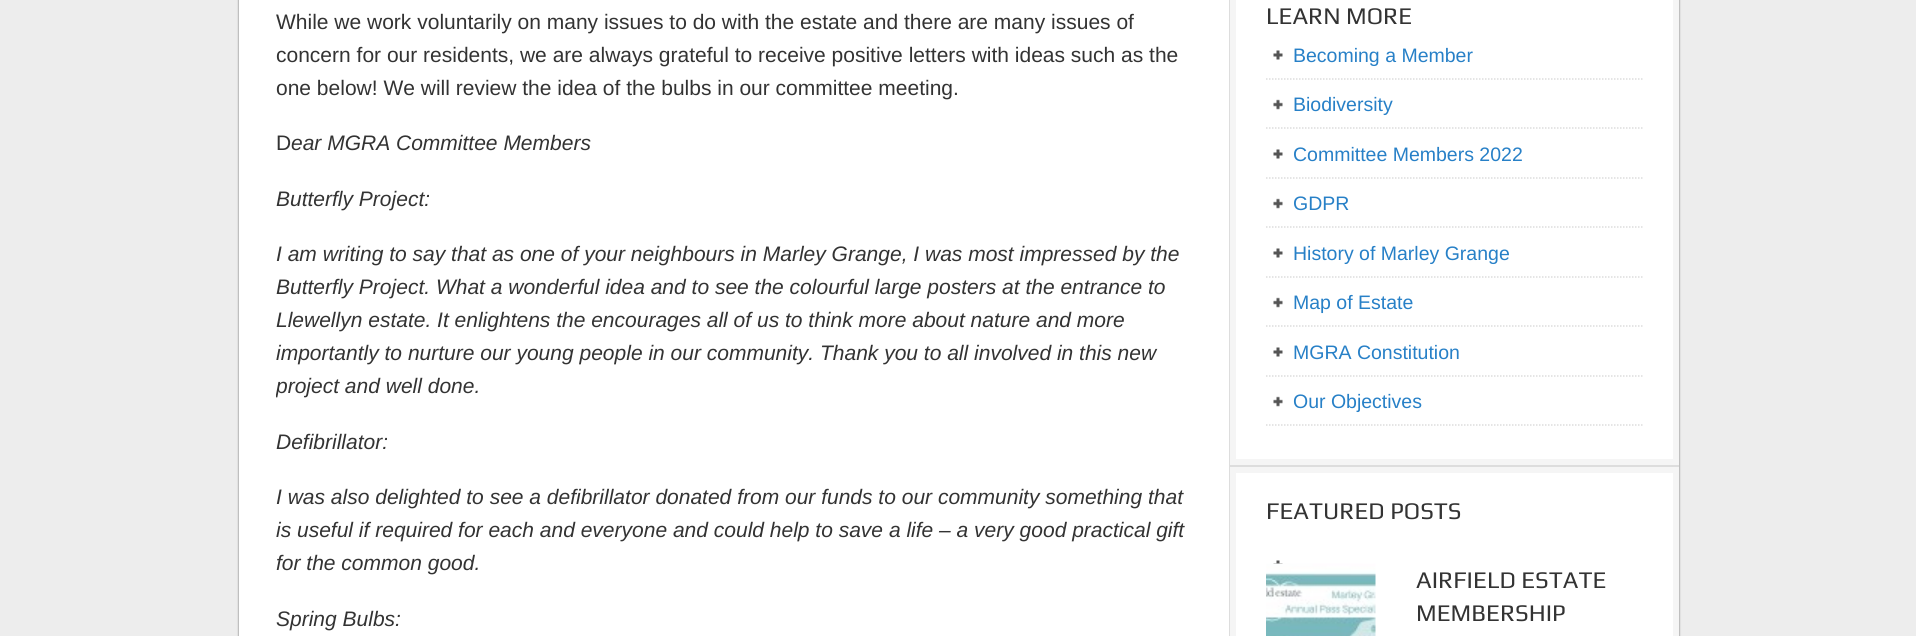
#include <cairo.h>
#include <math.h>
#include <stddef.h>

typedef struct { const char *family; double size; int italic, bold; unsigned color; } style_t;
static cairo_t *ctx;

static void ink(unsigned color) {
    cairo_set_source_rgb(ctx, (color >> 16) / 255.0, (color >> 8 & 255) / 255.0, (color & 255) / 255.0);
}

static void write(double x, double y, const char *s, const style_t *st) {
    cairo_select_font_face(ctx, st->family, st->italic ? CAIRO_FONT_SLANT_ITALIC : CAIRO_FONT_SLANT_NORMAL,
        st->bold ? CAIRO_FONT_WEIGHT_BOLD : CAIRO_FONT_WEIGHT_NORMAL);
    cairo_set_font_size(ctx, st->size);
    ink(st->color);
    cairo_move_to(ctx, x, y);
    cairo_show_text(ctx, s);
}

static void block(double x, double y, double w, double h, unsigned color) {
    ink(color);
    cairo_rectangle(ctx, x, y, w, h);
    cairo_fill(ctx);
}

static void round_path(double x, double y, double w, double h, double r) {
    cairo_new_sub_path(ctx);
    cairo_arc(ctx, x + w - r, y + h - r, r, 0, M_PI / 2);
    cairo_arc(ctx, x + r, y + h - r, r, M_PI / 2, M_PI);
    cairo_arc(ctx, x + r, y + r, r, M_PI, 1.5 * M_PI);
    cairo_arc(ctx, x + w - r, y + r, r, 1.5 * M_PI, 2 * M_PI);
    cairo_close_path(ctx);
}

static void blur_box(double x, double y, double w, double h, double r, double blur, double alpha) {
    cairo_push_group_with_content(ctx, CAIRO_CONTENT_ALPHA);
    cairo_set_operator(ctx, CAIRO_OPERATOR_SOURCE);
    for (int i = 15; i >= -15 && fmin(w, h) + blur * i / 3 > 0; i -= 2) {
        double e = blur * i / 6;
        cairo_set_source_rgba(ctx, 0, 0, 0, alpha * erfc((i - 1) / 8.5) / 2);
        round_path(x - e, y - e, w + 2 * e, h + 2 * e, fmax(0, fmin(r + e + blur * .6, fmin(w, h) / 2 + e)));
        cairo_fill(ctx);
    }
    cairo_pattern_t *soft = cairo_pop_group(ctx);
    cairo_mask(ctx, soft);
    cairo_pattern_destroy(soft);
}

static void paste(const char *path, double x, double y, double w, double h) {
    cairo_surface_t *image = cairo_image_surface_create_from_png(path);
    cairo_save(ctx);
    cairo_set_source_surface(ctx, image, x, y);
    cairo_rectangle(ctx, x, y, w, h);
    cairo_fill(ctx);
    cairo_restore(ctx);
    cairo_surface_destroy(image);
}

static const style_t s1 = {"Liberation Sans", 21, 0, 0, 0x333333};
static const style_t s2 = {"Liberation Sans", 21, 1, 0, 0x333333};
static const style_t s3 = {"Play", 24, 0, 0, 0x333333};
static const style_t s4 = {"Liberation Sans", 19.5, 0, 0, 0x2780c7};

int main(void) {
    cairo_surface_t *surface = cairo_image_surface_create(CAIRO_FORMAT_RGB24, 1916, 636);
    ctx = cairo_create(surface);
    cairo_font_options_t *options = cairo_font_options_create();
    cairo_font_options_set_hint_metrics(options, CAIRO_HINT_METRICS_OFF);
    cairo_font_options_set_hint_style(options, CAIRO_HINT_STYLE_NONE);
    cairo_set_font_options(ctx, options);
    cairo_set_miter_limit(ctx, 4);
    ink(0xededed);
    cairo_paint(ctx);
    ink(0x666666);
    blur_box(239, -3, 1440, 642, 0, 1, 1);
    block(239, 0, 1434, 636, 0xffffff);
    write(276, 29, "While we work voluntarily on many issues to do with the estate and there are many issues of", &s1);
    write(276, 62, "concern for our residents, we are always grateful to receive positive letters with ideas such as the", &s1);
    write(276, 95, "one below! We will review the idea of the bulbs in our committee meeting.", &s1);
    write(276, 150, "D", &s1);
    write(291, 150, "ear MGRA Committee Members", &s2);
    write(276, 206, "Butterfly Project:", &s2);
    write(276, 261, "I am writing to say that as one of your neighbours in Marley Grange, I was most impressed by the", &s2);
    write(276, 294, "Butterfly Project. What a wonderful idea and to see the colourful large posters at the entrance to", &s2);
    write(276, 327, "Llewellyn estate. It enlightens the encourages all of us to think more about nature and more", &s2);
    write(276, 360, "importantly to nurture our young people in our community. Thank you to all involved in this new", &s2);
    cairo_save(ctx);
    cairo_rectangle(ctx, 276, 5, 915, 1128);
    cairo_clip(ctx);
    write(276, 393, "project and well done.", &s2);
    cairo_restore(ctx);
    write(276, 449, "Defibrillator:", &s2);
    write(276, 504, "I was also delighted to see a defibrillator donated from our funds to our community something that", &s2);
    write(276, 537, "is useful if required for each and everyone and could help to save a life – a very good practical gift", &s2);
    write(276, 570, "for the common good.", &s2);
    write(276, 626, "Spring Bulbs:", &s2);
    block(1229, 465, 450, 2, 0xdddddd);
    block(1229, 0, 2, 467, 0xdddddd);
    cairo_rectangle(ctx, 1233, -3, 443, 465);
    ink(0xf5f5f5);
    cairo_set_line_width(ctx, 6);
    cairo_stroke(ctx);
    write(1266, 24, "LEARN MORE", &s3);
    paste("pic1.png", 1273, 50, 10, 10);
    cairo_new_path(ctx);
    cairo_move_to(ctx, 1266, 79);
    cairo_line_to(ctx, 1642.5, 79);
    ink(0xdddddd);
    cairo_set_line_width(ctx, 1.5);
    cairo_set_dash(ctx, (double[]){1.5, 1.5}, 2, 0);
    cairo_stroke(ctx);
    write(1293, 62, "Becoming a Member", &s4);
    paste("pic2.png", 1273, 99, 10, 11);
    cairo_new_path(ctx);
    cairo_move_to(ctx, 1266, 128);
    cairo_line_to(ctx, 1642.5, 128);
    ink(0xdddddd);
    cairo_stroke(ctx);
    write(1293, 111, "Biodiversity", &s4);
    paste("pic1.png", 1273, 149, 10, 10);
    cairo_new_path(ctx);
    cairo_move_to(ctx, 1266, 178);
    cairo_line_to(ctx, 1642.5, 178);
    ink(0xdddddd);
    cairo_stroke(ctx);
    write(1293, 161, "Committee Members 2022", &s4);
    paste("pic2.png", 1273, 198, 10, 11);
    cairo_new_path(ctx);
    cairo_move_to(ctx, 1266, 227);
    cairo_line_to(ctx, 1642.5, 227);
    ink(0xdddddd);
    cairo_stroke(ctx);
    write(1293, 210, "GDPR", &s4);
    paste("pic1.png", 1273, 248, 10, 10);
    cairo_new_path(ctx);
    cairo_move_to(ctx, 1266, 277);
    cairo_line_to(ctx, 1642.5, 277);
    ink(0xdddddd);
    cairo_stroke(ctx);
    write(1293, 260, "History of Marley Grange", &s4);
    paste("pic2.png", 1273, 297, 10, 11);
    cairo_new_path(ctx);
    cairo_move_to(ctx, 1266, 326);
    cairo_line_to(ctx, 1642.5, 326);
    ink(0xdddddd);
    cairo_stroke(ctx);
    write(1293, 309, "Map of Estate", &s4);
    paste("pic1.png", 1273, 347, 10, 10);
    cairo_new_path(ctx);
    cairo_move_to(ctx, 1266, 376);
    cairo_line_to(ctx, 1642.5, 376);
    ink(0xdddddd);
    cairo_stroke(ctx);
    write(1293, 359, "MGRA Constitution", &s4);
    paste("pic2.png", 1273, 396, 10, 11);
    cairo_new_path(ctx);
    cairo_move_to(ctx, 1266, 425);
    cairo_line_to(ctx, 1642.5, 425);
    ink(0xdddddd);
    cairo_stroke(ctx);
    write(1293, 408, "Our Objectives", &s4);
    block(1229, 467, 1, 169, 0xdddddd);
    cairo_rectangle(ctx, 1233, 470, 443, 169);
    ink(0xf5f5f5);
    cairo_set_line_width(ctx, 6);
    cairo_set_dash(ctx, NULL, 0, 0);
    cairo_stroke(ctx);
    write(1266, 519, "FEATURED POSTS", &s3);
    paste("pic3.png", 1273, 560, 10, 4);
    paste("pic4.png", 1266, 563, 110, 73);
    write(1416, 588, "AIRFIELD ESTATE", &s3);
    write(1416, 621, "MEMBERSHIP", &s3);
    cairo_surface_write_to_png(surface, "screenshot.png");
    cairo_font_options_destroy(options);
    cairo_destroy(ctx);
    cairo_surface_destroy(surface);
    return 0;
}
